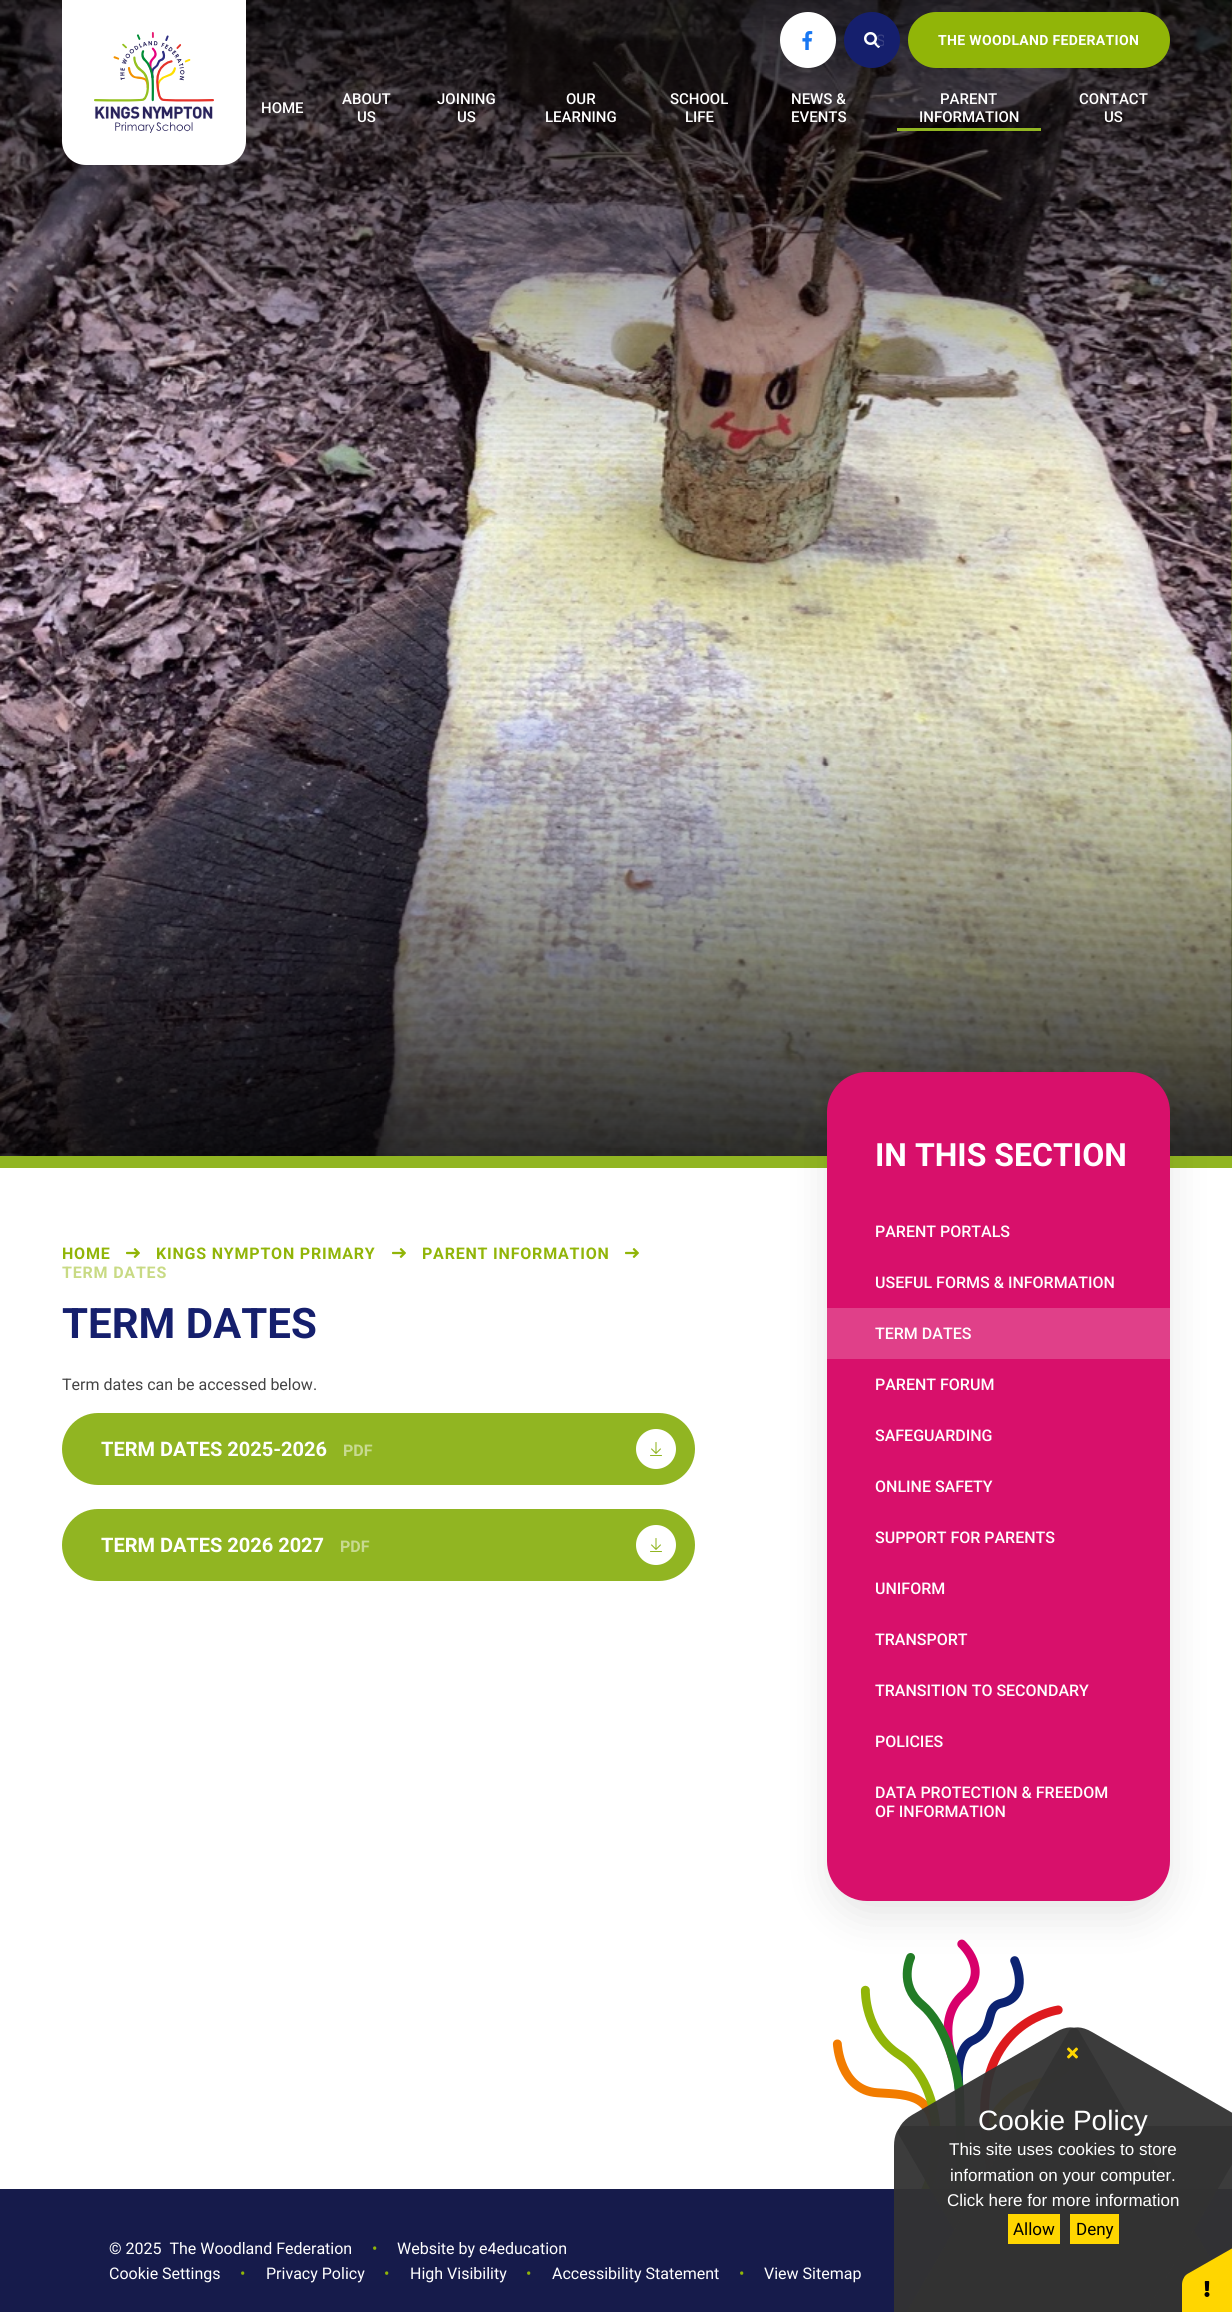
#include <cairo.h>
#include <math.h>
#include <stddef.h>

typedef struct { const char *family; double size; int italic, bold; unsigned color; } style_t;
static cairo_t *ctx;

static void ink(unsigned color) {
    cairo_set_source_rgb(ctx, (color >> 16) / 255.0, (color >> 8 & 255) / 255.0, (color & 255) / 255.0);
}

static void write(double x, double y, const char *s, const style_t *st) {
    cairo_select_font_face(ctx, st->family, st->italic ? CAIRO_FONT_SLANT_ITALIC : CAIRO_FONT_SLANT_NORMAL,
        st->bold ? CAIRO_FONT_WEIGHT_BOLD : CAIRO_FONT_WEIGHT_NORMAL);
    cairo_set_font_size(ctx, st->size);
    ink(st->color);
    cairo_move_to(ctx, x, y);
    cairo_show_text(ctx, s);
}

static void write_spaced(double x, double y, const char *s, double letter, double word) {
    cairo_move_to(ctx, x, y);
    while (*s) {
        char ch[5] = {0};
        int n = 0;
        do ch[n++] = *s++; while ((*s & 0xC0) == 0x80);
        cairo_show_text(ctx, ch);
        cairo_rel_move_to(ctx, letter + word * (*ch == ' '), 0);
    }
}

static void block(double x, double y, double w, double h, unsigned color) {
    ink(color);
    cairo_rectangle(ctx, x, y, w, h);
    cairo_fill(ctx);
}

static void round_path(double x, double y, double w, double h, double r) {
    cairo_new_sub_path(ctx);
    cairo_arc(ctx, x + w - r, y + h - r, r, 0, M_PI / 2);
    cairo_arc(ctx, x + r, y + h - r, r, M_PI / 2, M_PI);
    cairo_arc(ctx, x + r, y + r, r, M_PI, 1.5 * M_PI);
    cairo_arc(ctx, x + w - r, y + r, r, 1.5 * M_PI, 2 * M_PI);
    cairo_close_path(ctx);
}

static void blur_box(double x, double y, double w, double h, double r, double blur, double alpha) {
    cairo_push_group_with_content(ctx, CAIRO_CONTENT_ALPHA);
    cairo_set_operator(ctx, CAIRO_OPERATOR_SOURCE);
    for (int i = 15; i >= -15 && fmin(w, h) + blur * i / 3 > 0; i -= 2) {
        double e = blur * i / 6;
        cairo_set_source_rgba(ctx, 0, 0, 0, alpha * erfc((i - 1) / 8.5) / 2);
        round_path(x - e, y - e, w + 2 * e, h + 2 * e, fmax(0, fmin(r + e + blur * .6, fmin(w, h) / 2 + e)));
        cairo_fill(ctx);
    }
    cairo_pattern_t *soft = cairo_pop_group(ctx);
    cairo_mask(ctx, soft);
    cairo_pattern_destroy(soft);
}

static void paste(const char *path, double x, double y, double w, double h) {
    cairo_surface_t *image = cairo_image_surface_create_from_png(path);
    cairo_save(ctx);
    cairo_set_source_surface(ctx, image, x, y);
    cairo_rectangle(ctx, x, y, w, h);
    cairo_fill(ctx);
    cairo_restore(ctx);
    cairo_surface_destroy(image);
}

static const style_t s1 = {"Roboto", 16, 0, 0, 0x394183};
static const style_t s2 = {"Roboto Medium", 15, 0, 0, 0xffffff};
static const style_t s3 = {"Roboto", 42, 0, 1, 0x151f6d};
static const style_t s4 = {"Roboto", 16, 0, 0, 0x444444};
static const style_t s5 = {"Roboto", 20, 0, 1, 0xffffff};
static const style_t s6 = {"Roboto", 16, 0, 1, 0xc8da91};
static const style_t s7 = {"Roboto", 32, 0, 1, 0xffffff};
static const style_t s8 = {"Roboto Medium", 16, 0, 0, 0xffffff};
static const style_t s9 = {"Roboto", 16, 0, 0, 0xffffff};
static const style_t s10 = {"Roboto", 16, 0, 0, 0x91b508};
static const style_t s11 = {"Liberation Sans", 28, 0, 0, 0xffffff};
static const style_t s12 = {"Liberation Sans", 17, 0, 0, 0xffffff};
static const style_t s13 = {"Roboto", 17, 0, 0, 0x000000};

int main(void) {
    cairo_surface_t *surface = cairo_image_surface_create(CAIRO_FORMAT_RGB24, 1232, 2312);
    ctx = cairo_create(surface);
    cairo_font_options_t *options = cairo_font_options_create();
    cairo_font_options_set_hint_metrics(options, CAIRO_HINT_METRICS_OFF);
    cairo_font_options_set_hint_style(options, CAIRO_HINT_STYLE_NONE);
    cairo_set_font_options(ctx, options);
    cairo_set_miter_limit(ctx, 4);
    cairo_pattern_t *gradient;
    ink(0xffffff);
    cairo_paint(ctx);
    gradient = cairo_pattern_create_linear(499, -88, 733, 1244);
    cairo_pattern_add_color_stop_rgba(gradient, 0, 0.635, 0.792, 0.149, 1);
    cairo_pattern_add_color_stop_rgba(gradient, 1, 0.365, 0.459, 0.086, 1);
    cairo_set_source(ctx, gradient);
    cairo_pattern_destroy(gradient);
    cairo_rectangle(ctx, 1231, 0, 1, 1156);
    cairo_fill(ctx);
    paste("pic1.png", 0, 0, 1232, 1156);
    gradient = cairo_pattern_create_linear(616, 0, 616, 462);
    cairo_pattern_add_color_stop_rgba(gradient, 0, 0, 0, 0, 0.8);
    cairo_pattern_add_color_stop_rgba(gradient, 1, 0, 0, 0, 0);
    cairo_set_source(ctx, gradient);
    cairo_pattern_destroy(gradient);
    cairo_rectangle(ctx, 0, 0, 1232, 450);
    cairo_fill(ctx);
    gradient = cairo_pattern_create_linear(616, 1156, 616, 694);
    cairo_pattern_add_color_stop_rgba(gradient, 0, 0, 0, 0, 0.8);
    cairo_pattern_add_color_stop_rgba(gradient, 1, 0, 0, 0, 0);
    cairo_set_source(ctx, gradient);
    cairo_pattern_destroy(gradient);
    cairo_rectangle(ctx, 0, 706, 1232, 450);
    cairo_fill(ctx);
    ink(0xffffff);
    cairo_new_path(ctx);
    cairo_move_to(ctx, 62, 0);
    cairo_line_to(ctx, 246, 0);
    cairo_line_to(ctx, 246, 141);
    cairo_curve_to(ctx, 246, 154.5, 235.5, 165, 222, 165);
    cairo_line_to(ctx, 86, 165);
    cairo_curve_to(ctx, 72.5, 165, 62, 154.5, 62, 141);
    cairo_close_path(ctx);
    cairo_fill(ctx);
    paste("pic2.png", 94, 32, 120, 101);
    cairo_arc(ctx, 808, 40, 28, 0, 2 * M_PI);
    cairo_fill(ctx);
    paste("pic3.png", 802, 31, 11, 19);
    ink(0x151f6d);
    cairo_arc(ctx, 872, 40, 28, 0, 2 * M_PI);
    cairo_fill(ctx);
    paste("pic4.png", 864, 32, 16, 16);
    cairo_save(ctx);
    cairo_rectangle(ctx, 876, 31, 8, 19);
    cairo_clip(ctx);
    write(876, 46, "S", &s1);
    cairo_restore(ctx);
    ink(0x91b508);
    round_path(908, 12, 262, 56, 28);
    cairo_fill(ctx);
    cairo_select_font_face(ctx, "Roboto", CAIRO_FONT_SLANT_NORMAL, CAIRO_FONT_WEIGHT_BOLD);
    cairo_set_font_size(ctx, 14);
    ink(0xffffff);
    write_spaced(938, 45, "THE WOODLAND FEDERATION", 0.35, 0);
    write(261, 113, "HOME", &s2);
    write(342, 104, "ABOUT", &s2);
    write(357, 122, "US", &s2);
    write(437, 104, "JOINING", &s2);
    write(457, 122, "US", &s2);
    write(566, 104, "OUR", &s2);
    write(545, 122, "LEARNING", &s2);
    write(670, 104, "SCHOOL", &s2);
    write(685, 122, "LIFE", &s2);
    write(791, 104, "NEWS &", &s2);
    write(791, 122, "EVENTS", &s2);
    write(940, 104, "PARENT", &s2);
    write(919, 122, "INFORMATION", &s2);
    block(897, 128, 144, 3, 0x91b522);
    write(1079, 104, "CONTACT", &s2);
    write(1104, 122, "US", &s2);
    cairo_select_font_face(ctx, "Roboto", CAIRO_FONT_SLANT_NORMAL, CAIRO_FONT_WEIGHT_BOLD);
    cairo_set_font_size(ctx, 16);
    ink(0x91b508);
    write_spaced(62, 1259, "HOME", 0.8, 0);
    paste("pic5.png", 126, 1248, 14, 10);
    write_spaced(156, 1259, "KINGS NYMPTON PRIMARY", 0.8, 0);
    paste("pic5.png", 392, 1248, 14, 10);
    write_spaced(422, 1259, "PARENT INFORMATION", 0.8, 0);
    paste("pic5.png", 625, 1248, 14, 10);
    ink(0xc8da84);
    write_spaced(62, 1278, "TERM DATES", 0.8, 0);
    write(62, 1338, "TERM DATES", &s3);
    write(62, 1390, "Term dates can be accessed below.", &s4);
    ink(0x91b522);
    round_path(62, 1413, 633, 72, 36);
    cairo_fill(ctx);
    write(101, 1456, "TERM DATES 2025-2026", &s5);
    write(343, 1456, "PDF", &s6);
    ink(0xffffff);
    cairo_new_path(ctx);
    cairo_arc(ctx, 656, 1449, 20, 0, 2 * M_PI);
    cairo_fill(ctx);
    paste("pic6.png", 650, 1442, 12, 14);
    ink(0x91b522);
    round_path(62, 1509, 633, 72, 36);
    cairo_fill(ctx);
    write(101, 1552, "TERM DATES 2026 2027", &s5);
    write(340, 1552, "PDF", &s6);
    ink(0xffffff);
    cairo_new_path(ctx);
    cairo_arc(ctx, 656, 1545, 20, 0, 2 * M_PI);
    cairo_fill(ctx);
    paste("pic6.png", 650, 1538, 12, 14);
    block(0, 1156, 1232, 12, 0x91b522);
    paste("pic7.png", 832, 1939, 249, 250);
    ink(0x000000);
    blur_box(827, 1088, 343, 829, 40, 20, 0.1);
    ink(0xd8106b);
    round_path(827, 1072, 343, 829, 40);
    cairo_fill(ctx);
    write(875, 1166, "IN THIS SECTION", &s7);
    write(875, 1237, "PARENT PORTALS", &s8);
    write(875, 1288, "USEFUL FORMS & INFORMATION", &s8);
    block(827, 1308, 343, 51, 0xe04089);
    write(875, 1339, "TERM DATES", &s8);
    write(875, 1390, "PARENT FORUM", &s8);
    write(875, 1441, "SAFEGUARDING", &s8);
    write(875, 1492, "ONLINE SAFETY", &s8);
    write(875, 1543, "SUPPORT FOR PARENTS", &s8);
    write(875, 1594, "UNIFORM", &s8);
    write(875, 1645, "TRANSPORT", &s8);
    write(875, 1696, "TRANSITION TO SECONDARY", &s8);
    write(875, 1747, "POLICIES", &s8);
    write(875, 1798, "DATA PROTECTION & FREEDOM", &s8);
    write(875, 1817, "OF INFORMATION", &s8);
    block(0, 2189, 1232, 123, 0x161b4b);
    write(109, 2254, "© 2025  The Woodland Federation", &s9);
    write(372, 2254, "•", &s10);
    write(397, 2254, "Website by e4education", &s9);
    write(109, 2279, "Cookie Settings", &s9);
    write(240, 2279, "•", &s10);
    write(266, 2279, "Privacy Policy", &s9);
    write(384, 2279, "•", &s10);
    write(410, 2279, "High Visibility", &s9);
    write(526, 2279, "•", &s10);
    write(552, 2279, "Accessibility Statement", &s9);
    write(739, 2279, "•", &s10);
    write(764, 2279, "View Sitemap", &s9);
    cairo_new_path(ctx);
    cairo_arc(ctx, 1138.5, 2261.5, 24.5, 0, 2 * M_PI);
    cairo_fill(ctx);
    paste("pic8.png", 1134, 2253, 9, 17);
    cairo_set_source_rgba(ctx, 0.2, 0.2, 0.2, 0.95);
    cairo_new_path(ctx);
    cairo_move_to(ctx, 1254, 2146);
    cairo_line_to(ctx, 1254, 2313);
    cairo_curve_to(ctx, 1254, 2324, 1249, 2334, 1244, 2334);
    cairo_line_to(ctx, 904, 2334);
    cairo_curve_to(ctx, 898, 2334, 894, 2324, 894, 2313);
    cairo_line_to(ctx, 894, 2146);
    cairo_curve_to(ctx, 894, 2135, 898, 2126, 904, 2126);
    cairo_line_to(ctx, 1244, 2126);
    cairo_curve_to(ctx, 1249, 2126, 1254, 2135, 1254, 2146);
    cairo_close_path(ctx);
    cairo_fill(ctx);
    cairo_new_path(ctx);
    cairo_move_to(ctx, 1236, 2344);
    cairo_line_to(ctx, 1092, 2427);
    cairo_curve_to(ctx, 1082, 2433, 1072, 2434, 1069, 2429);
    cairo_line_to(ctx, 899, 2135);
    cairo_curve_to(ctx, 896, 2130, 902, 2121, 912, 2115);
    cairo_line_to(ctx, 1056, 2032);
    cairo_curve_to(ctx, 1066, 2026, 1076, 2026, 1079, 2031);
    cairo_line_to(ctx, 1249, 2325);
    cairo_curve_to(ctx, 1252, 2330, 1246, 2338, 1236, 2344);
    cairo_close_path(ctx);
    cairo_fill(ctx);
    cairo_new_path(ctx);
    cairo_move_to(ctx, 1092, 2032);
    cairo_line_to(ctx, 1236, 2115);
    cairo_curve_to(ctx, 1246, 2121, 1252, 2130, 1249, 2135);
    cairo_line_to(ctx, 1079, 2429);
    cairo_curve_to(ctx, 1076, 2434, 1066, 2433, 1056, 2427);
    cairo_line_to(ctx, 912, 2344);
    cairo_curve_to(ctx, 902, 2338, 896, 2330, 899, 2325);
    cairo_line_to(ctx, 1069, 2031);
    cairo_curve_to(ctx, 1072, 2026, 1082, 2026, 1092, 2032);
    cairo_close_path(ctx);
    cairo_fill(ctx);
    paste("pic9.png", 1067, 2047, 11, 12);
    write(978, 2130, "Cookie Policy", &s11);
    write(949, 2155, "This site uses cookies to store", &s12);
    write(950, 2181, "information on your computer.", &s12);
    write(947, 2206, "Click here for more information", &s12);
    block(1008, 2214, 52, 30, 0xffd600);
    write(1013, 2235, "Allow", &s13);
    block(1070, 2214, 49, 30, 0xffd600);
    write(1076, 2235, "Deny", &s13);
    ink(0xffd600);
    cairo_new_path(ctx);
    cairo_move_to(ctx, 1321, 2285);
    cairo_line_to(ctx, 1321, 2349);
    cairo_curve_to(ctx, 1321, 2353, 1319, 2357, 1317, 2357);
    cairo_line_to(ctx, 1186, 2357);
    cairo_curve_to(ctx, 1184, 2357, 1182, 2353, 1182, 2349);
    cairo_line_to(ctx, 1182, 2285);
    cairo_curve_to(ctx, 1182, 2280, 1184, 2277, 1186, 2277);
    cairo_line_to(ctx, 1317, 2277);
    cairo_curve_to(ctx, 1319, 2277, 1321, 2280, 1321, 2285);
    cairo_close_path(ctx);
    cairo_fill(ctx);
    cairo_new_path(ctx);
    cairo_move_to(ctx, 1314, 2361);
    cairo_line_to(ctx, 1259, 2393);
    cairo_curve_to(ctx, 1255, 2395, 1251, 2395, 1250, 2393);
    cairo_line_to(ctx, 1184, 2280);
    cairo_curve_to(ctx, 1183, 2278, 1185, 2275, 1189, 2273);
    cairo_line_to(ctx, 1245, 2241);
    cairo_curve_to(ctx, 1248, 2239, 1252, 2238, 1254, 2240);
    cairo_line_to(ctx, 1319, 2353);
    cairo_curve_to(ctx, 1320, 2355, 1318, 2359, 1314, 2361);
    cairo_close_path(ctx);
    cairo_fill(ctx);
    paste("pic10.png", 1204, 2281, 6, 16);
    cairo_surface_write_to_png(surface, "screenshot.png");
    cairo_font_options_destroy(options);
    cairo_destroy(ctx);
    cairo_surface_destroy(surface);
    return 0;
}
